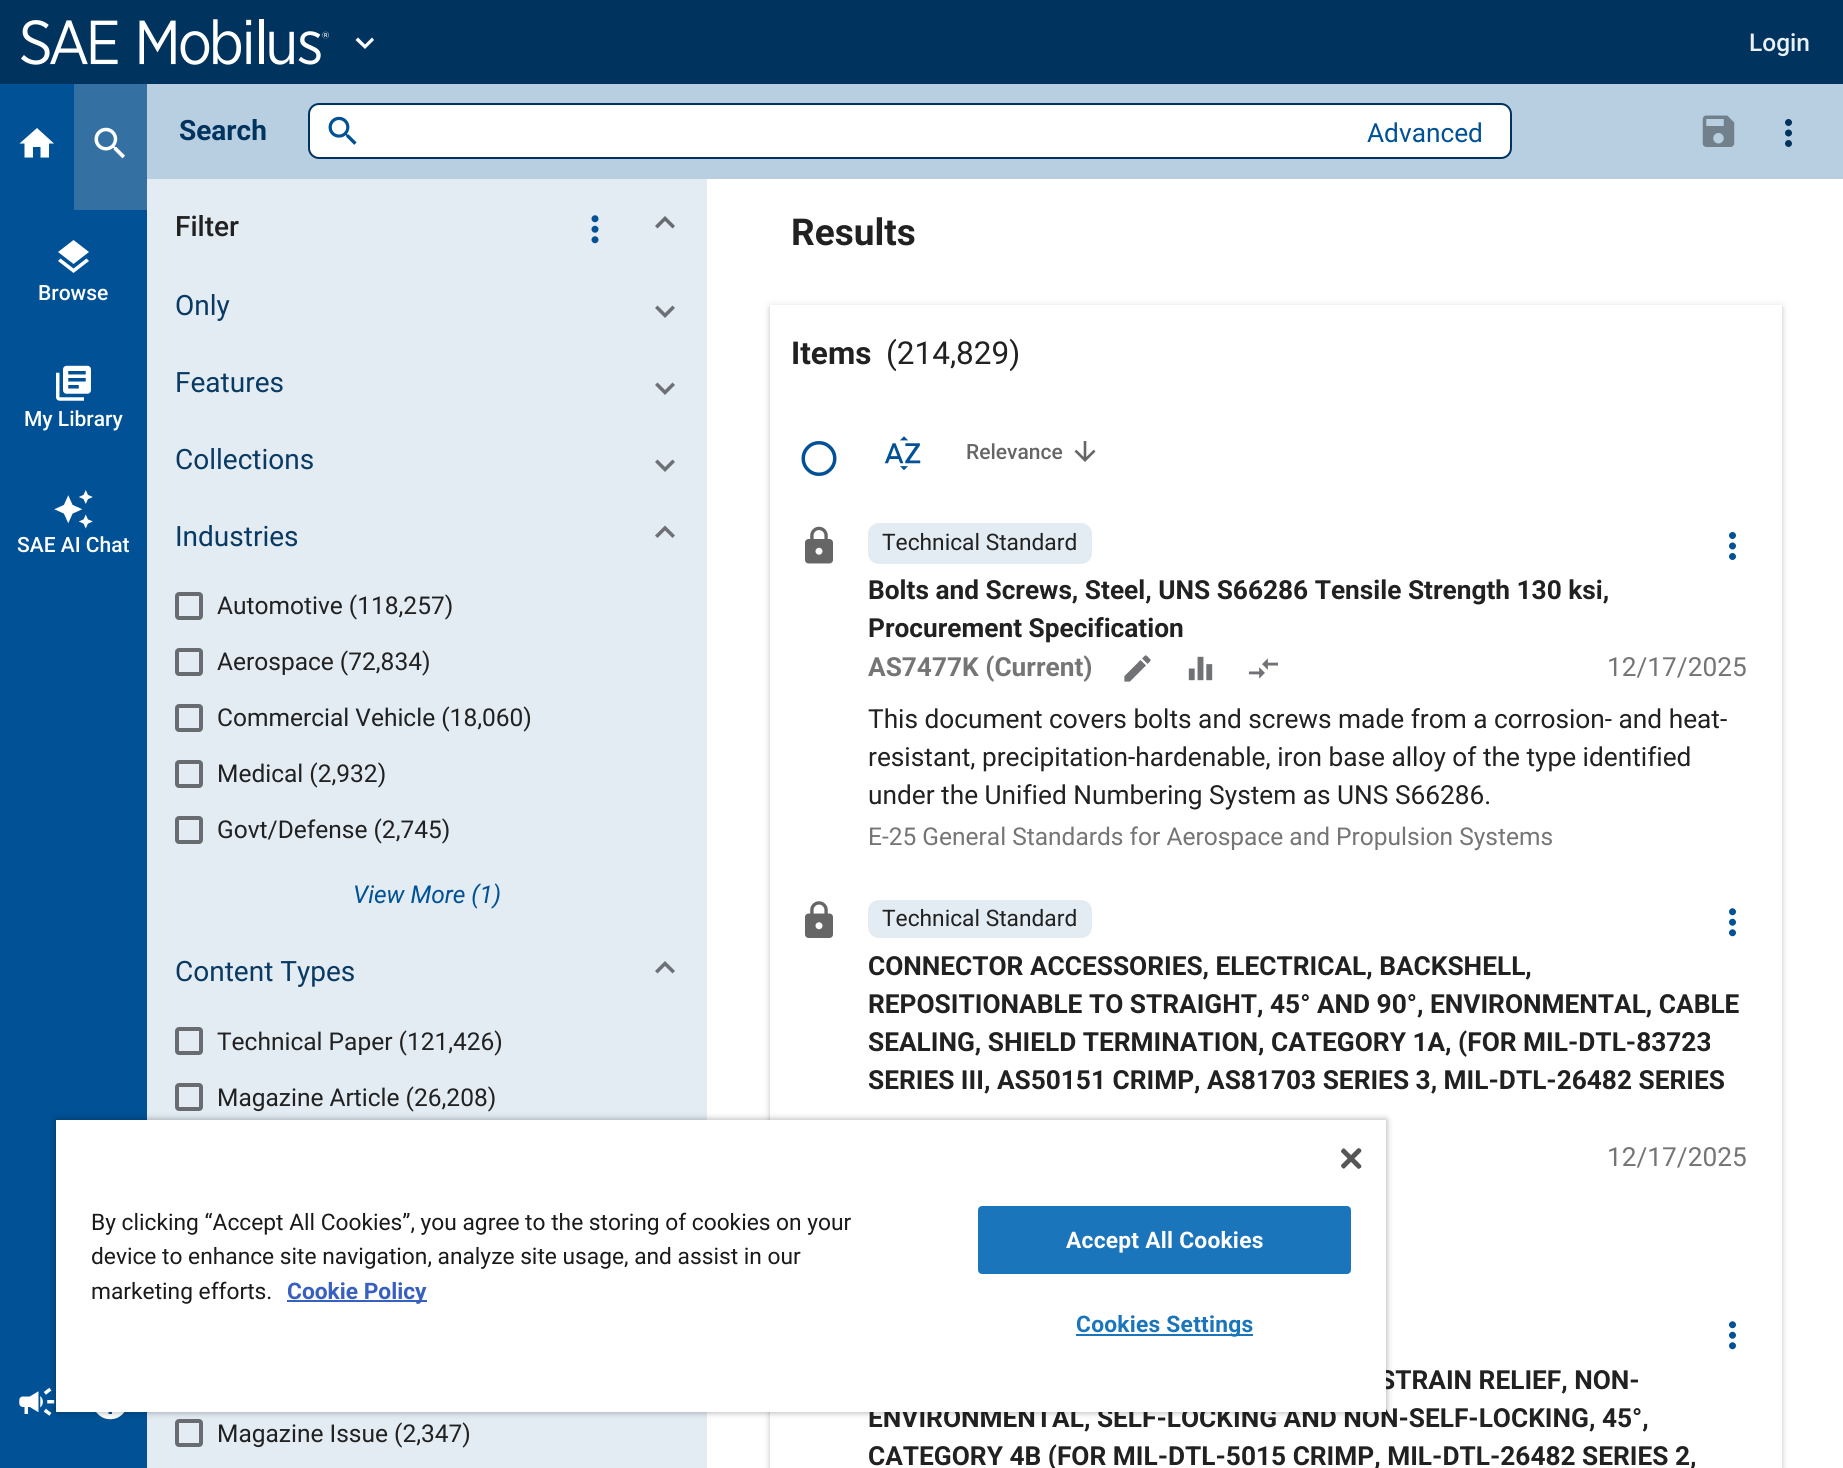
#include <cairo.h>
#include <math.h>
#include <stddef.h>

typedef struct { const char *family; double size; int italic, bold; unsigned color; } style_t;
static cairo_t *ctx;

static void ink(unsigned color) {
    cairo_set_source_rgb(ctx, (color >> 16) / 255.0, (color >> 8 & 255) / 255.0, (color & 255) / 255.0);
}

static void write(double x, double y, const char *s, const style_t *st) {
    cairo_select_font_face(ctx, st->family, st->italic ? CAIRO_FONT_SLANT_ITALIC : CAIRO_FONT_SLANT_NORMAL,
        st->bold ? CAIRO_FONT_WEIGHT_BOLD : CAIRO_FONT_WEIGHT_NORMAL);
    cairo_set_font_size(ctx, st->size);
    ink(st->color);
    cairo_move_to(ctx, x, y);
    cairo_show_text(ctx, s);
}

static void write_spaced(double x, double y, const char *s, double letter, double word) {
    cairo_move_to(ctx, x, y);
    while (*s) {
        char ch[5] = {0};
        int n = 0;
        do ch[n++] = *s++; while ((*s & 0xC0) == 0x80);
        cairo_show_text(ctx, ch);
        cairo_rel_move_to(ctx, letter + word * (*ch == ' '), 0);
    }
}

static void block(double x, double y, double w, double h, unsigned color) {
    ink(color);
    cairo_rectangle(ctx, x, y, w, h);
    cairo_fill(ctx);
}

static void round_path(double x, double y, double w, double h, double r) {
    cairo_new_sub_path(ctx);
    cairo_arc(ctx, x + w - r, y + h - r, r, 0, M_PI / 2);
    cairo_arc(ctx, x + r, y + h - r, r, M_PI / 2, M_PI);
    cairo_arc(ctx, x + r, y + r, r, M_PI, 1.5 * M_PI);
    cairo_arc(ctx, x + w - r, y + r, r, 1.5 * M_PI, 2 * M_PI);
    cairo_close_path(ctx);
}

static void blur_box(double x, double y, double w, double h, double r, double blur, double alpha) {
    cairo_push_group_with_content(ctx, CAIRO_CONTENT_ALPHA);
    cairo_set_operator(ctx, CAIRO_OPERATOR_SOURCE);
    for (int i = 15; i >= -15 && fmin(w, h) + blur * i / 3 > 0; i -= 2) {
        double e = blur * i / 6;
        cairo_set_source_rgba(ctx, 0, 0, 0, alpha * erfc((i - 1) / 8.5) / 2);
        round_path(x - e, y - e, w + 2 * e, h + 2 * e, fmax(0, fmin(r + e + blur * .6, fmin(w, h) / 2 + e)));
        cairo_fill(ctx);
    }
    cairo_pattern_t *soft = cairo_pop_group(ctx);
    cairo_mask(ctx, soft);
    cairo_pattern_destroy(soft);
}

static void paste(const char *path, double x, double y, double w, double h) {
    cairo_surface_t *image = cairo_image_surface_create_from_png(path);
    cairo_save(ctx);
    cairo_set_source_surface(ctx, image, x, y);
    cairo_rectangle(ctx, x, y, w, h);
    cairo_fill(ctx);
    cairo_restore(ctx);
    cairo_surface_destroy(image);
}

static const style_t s1 = {"Roboto Medium", 24.5, 0, 0, 0xe9f0f6};
static const style_t s2 = {"Roboto Medium", 21, 0, 0, 0xffffff};
static const style_t s3 = {"Roboto", 28, 0, 1, 0x00335d};
static const style_t s4 = {"Roboto", 26.25, 0, 0, 0x005195};
static const style_t s5 = {"Roboto Medium", 28, 0, 0, 0x212121};
static const style_t s6 = {"Roboto", 28, 0, 0, 0x093a63};
static const style_t s7 = {"Roboto", 24.5, 0, 0, 0x212121};
static const style_t s8 = {"Roboto", 24.5, 1, 0, 0x005195};
static const style_t s9 = {"Roboto", 37, 0, 1, 0x212121};
static const style_t s10 = {"Roboto", 31.5, 0, 1, 0x212121};
static const style_t s11 = {"Roboto", 31.5, 0, 0, 0x212121};
static const style_t s12 = {"Roboto Medium", 21, 0, 0, 0x666666};
static const style_t s13 = {"Roboto", 22.75, 0, 0, 0x212121};
static const style_t s14 = {"Roboto", 26.25, 0, 1, 0x212121};
static const style_t s15 = {"Roboto", 26.25, 0, 1, 0x757575};
static const style_t s16 = {"Roboto", 26.25, 0, 0, 0x757575};
static const style_t s17 = {"Roboto", 26.25, 0, 0, 0x212121};
static const style_t s18 = {"Roboto", 24.5, 0, 0, 0x757575};
static const style_t s19 = {"Roboto", 22.75, 0, 0, 0x1a1a1a};
static const style_t s20 = {"Roboto", 22.75, 0, 1, 0x3860be};

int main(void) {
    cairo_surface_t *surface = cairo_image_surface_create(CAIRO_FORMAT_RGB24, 1843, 1468);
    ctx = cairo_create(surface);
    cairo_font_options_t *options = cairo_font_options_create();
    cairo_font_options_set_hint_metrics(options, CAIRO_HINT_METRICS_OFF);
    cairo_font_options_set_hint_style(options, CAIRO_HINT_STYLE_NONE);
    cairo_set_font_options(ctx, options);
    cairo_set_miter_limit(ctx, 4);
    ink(0xffffff);
    cairo_paint(ctx);
    block(0, 0, 1843, 84, 0x00335d);
    paste("pic1.png", 21, 19, 308, 46);
    ink(0xffffff);
    cairo_new_path(ctx);
    cairo_move_to(ctx, 372, 37.5);
    cairo_line_to(ctx, 374, 40);
    cairo_line_to(ctx, 365, 49);
    cairo_line_to(ctx, 355.5, 40);
    cairo_line_to(ctx, 358, 37.5);
    cairo_line_to(ctx, 365, 44.5);
    cairo_close_path(ctx);
    cairo_fill(ctx);
    write(1749, 51, "Login", &s1);
    block(0, 84, 147, 1384, 0x005195);
    ink(0xffffff);
    cairo_new_path(ctx);
    cairo_move_to(ctx, 33, 157.5);
    cairo_line_to(ctx, 24.5, 157.5);
    cairo_line_to(ctx, 24.5, 143.5);
    cairo_line_to(ctx, 19.5, 143.5);
    cairo_line_to(ctx, 37, 128);
    cairo_line_to(ctx, 54, 143.5);
    cairo_line_to(ctx, 49, 143.5);
    cairo_line_to(ctx, 49, 157.5);
    cairo_line_to(ctx, 40.5, 157.5);
    cairo_line_to(ctx, 40.5, 147);
    cairo_line_to(ctx, 33, 147);
    cairo_close_path(ctx);
    cairo_fill(ctx);
    block(74, 84, 73, 126, 0x3471a2);
    paste("pic2.png", 94, 127, 31, 32);
    ink(0xffffff);
    cairo_new_path(ctx);
    cairo_move_to(ctx, 73.5, 264);
    cairo_line_to(ctx, 58, 252);
    cairo_line_to(ctx, 73.5, 240);
    cairo_line_to(ctx, 89, 252);
    cairo_close_path(ctx);
    cairo_move_to(ctx, 73.5, 268.5);
    cairo_line_to(ctx, 86.5, 258.5);
    cairo_line_to(ctx, 89, 261);
    cairo_line_to(ctx, 73.5, 273);
    cairo_line_to(ctx, 58, 261);
    cairo_line_to(ctx, 60.5, 258.5);
    cairo_close_path(ctx);
    cairo_fill(ctx);
    write(38, 300, "Browse", &s2);
    paste("pic3.png", 56, 365, 35, 36);
    write(24, 426, "My Library", &s2);
    paste("pic4.png", 54, 490, 39, 39);
    write(17, 552, "SAE AI Chat", &s2);
    paste("pic5.png", 19, 1387, 36, 29);
    paste("pic6.png", 96, 1412, 29, 8);
    block(147, 84, 1696, 95, 0xb8cfe1);
    write(179, 140, "Search", &s3);
    ink(0xffffff);
    round_path(309, 104, 1202, 54, 10);
    cairo_fill_preserve(ctx);
    ink(0x00335d);
    cairo_stroke(ctx);
    paste("pic7.png", 328, 116, 29, 29);
    write(1367, 142, "Advanced", &s4);
    paste("pic8.png", 1702, 115, 33, 32);
    paste("pic9.png", 1785, 119, 7, 28);
    block(147, 179, 560, 1289, 0xe3ebf3);
    write(175, 236, "Filter", &s5);
    ink(0x686c70);
    cairo_new_path(ctx);
    cairo_move_to(ctx, 655, 226);
    cairo_line_to(ctx, 665, 216);
    cairo_line_to(ctx, 665, 221);
    cairo_line_to(ctx, 657.5, 228.5);
    cairo_close_path(ctx);
    cairo_move_to(ctx, 665, 216);
    cairo_line_to(ctx, 675, 226);
    cairo_line_to(ctx, 672.5, 228.5);
    cairo_line_to(ctx, 665, 221);
    cairo_close_path(ctx);
    cairo_fill(ctx);
    paste("pic10.png", 591, 215, 8, 29);
    write(175, 315, "Only", &s6);
    ink(0x6d7175);
    cairo_new_path(ctx);
    cairo_move_to(ctx, 675, 308);
    cairo_line_to(ctx, 665, 318);
    cairo_line_to(ctx, 665, 313);
    cairo_line_to(ctx, 672.5, 305.5);
    cairo_close_path(ctx);
    cairo_move_to(ctx, 665, 318);
    cairo_line_to(ctx, 655, 308);
    cairo_line_to(ctx, 657.5, 305.5);
    cairo_line_to(ctx, 665, 313);
    cairo_close_path(ctx);
    cairo_fill(ctx);
    write(175, 392, "Features", &s6);
    ink(0x6d7175);
    cairo_new_path(ctx);
    cairo_move_to(ctx, 675, 385);
    cairo_line_to(ctx, 665, 395);
    cairo_line_to(ctx, 665, 390);
    cairo_line_to(ctx, 672.5, 382.5);
    cairo_close_path(ctx);
    cairo_move_to(ctx, 665, 395);
    cairo_line_to(ctx, 655, 385);
    cairo_line_to(ctx, 657.5, 382.5);
    cairo_line_to(ctx, 665, 390);
    cairo_close_path(ctx);
    cairo_fill(ctx);
    write(175, 469, "Collections", &s6);
    ink(0x6d7175);
    cairo_new_path(ctx);
    cairo_move_to(ctx, 675, 462);
    cairo_line_to(ctx, 665, 472);
    cairo_line_to(ctx, 665, 467);
    cairo_line_to(ctx, 672.5, 459.5);
    cairo_close_path(ctx);
    cairo_move_to(ctx, 665, 472);
    cairo_line_to(ctx, 655, 462);
    cairo_line_to(ctx, 657.5, 459.5);
    cairo_line_to(ctx, 665, 467);
    cairo_close_path(ctx);
    cairo_fill(ctx);
    write(175, 546, "Industries", &s6);
    ink(0x6d7175);
    cairo_new_path(ctx);
    cairo_move_to(ctx, 655, 535.5);
    cairo_line_to(ctx, 665, 525.5);
    cairo_line_to(ctx, 665, 530.5);
    cairo_line_to(ctx, 657.5, 538);
    cairo_close_path(ctx);
    cairo_move_to(ctx, 665, 525.5);
    cairo_line_to(ctx, 675, 535.5);
    cairo_line_to(ctx, 672.5, 538);
    cairo_line_to(ctx, 665, 530.5);
    cairo_close_path(ctx);
    cairo_fill(ctx);
    round_path(177, 594, 24, 24, 2);
    ink(0x686c70);
    cairo_set_line_width(ctx, 4);
    cairo_stroke(ctx);
    write(217, 614, "Automotive (118,257)", &s7);
    round_path(177, 650, 24, 24, 2);
    ink(0x686c70);
    cairo_stroke(ctx);
    write(217, 670, "Aerospace (72,834)", &s7);
    round_path(177, 706, 24, 24, 2);
    ink(0x686c70);
    cairo_stroke(ctx);
    write(217, 726, "Commercial Vehicle (18,060)", &s7);
    round_path(177, 762, 24, 24, 2);
    ink(0x686c70);
    cairo_stroke(ctx);
    write(217, 782, "Medical (2,932)", &s7);
    round_path(177, 818, 24, 24, 2);
    ink(0x686c70);
    cairo_stroke(ctx);
    write(217, 838, "Govt/Defense (2,745)", &s7);
    write(353, 903, "View More (1)", &s8);
    write(175, 981, "Content Types", &s6);
    ink(0x6d7175);
    cairo_new_path(ctx);
    cairo_move_to(ctx, 655, 971);
    cairo_line_to(ctx, 665, 961);
    cairo_line_to(ctx, 665, 966);
    cairo_line_to(ctx, 657.5, 973.5);
    cairo_close_path(ctx);
    cairo_move_to(ctx, 665, 961);
    cairo_line_to(ctx, 675, 971);
    cairo_line_to(ctx, 672.5, 973.5);
    cairo_line_to(ctx, 665, 966);
    cairo_close_path(ctx);
    cairo_fill(ctx);
    round_path(177, 1029, 24, 24, 2);
    ink(0x686c70);
    cairo_stroke(ctx);
    write(217, 1050, "Technical Paper (121,426)", &s7);
    round_path(177, 1085, 24, 24, 2);
    ink(0x686c70);
    cairo_stroke(ctx);
    write(217, 1106, "Magazine Article (26,208)", &s7);
    round_path(177, 1421, 24, 24, 2);
    ink(0x686c70);
    cairo_stroke(ctx);
    write(217, 1442, "Magazine Issue (2,347)", &s7);
    write(791, 245, "Results", &s9);
    ink(0x000000);
    blur_box(770, 306, 1012, 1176, 0, 4.5, 0.12);
    blur_box(770, 308, 1012, 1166, 0, 2, 0.14);
    block(770, 305, 1012, 1163, 0xffffff);
    write(791, 364, "Items", &s10);
    write(886, 364, "(214,829)", &s11);
    paste("pic11.png", 801, 441, 36, 35);
    paste("pic12.png", 884, 436, 37, 35);
    write(966, 459, "Relevance", &s12);
    paste("pic13.png", 1074, 441, 22, 21);
    ink(0xe3ebf3);
    round_path(868, 523, 224, 41, 11);
    cairo_fill(ctx);
    write(882, 550, "Technical Standard", &s13);
    paste("pic14.png", 1729, 532, 7, 28);
    paste("pic15.png", 805, 526, 28, 38);
    write(868, 599, "Bolts and Screws, Steel, UNS S66286 Tensile Strength 130 ksi,", &s14);
    write(868, 637, "Procurement Specification", &s14);
    write(868, 676, "AS7477K (Current)", &s15);
    paste("pic16.png", 1124, 655, 27, 27);
    paste("pic17.png", 1188, 656, 25, 25);
    paste("pic18.png", 1248, 658, 31, 21);
    write(1607, 676, "12/17/2025", &s16);
    write(868, 728, "This document covers bolts and screws made from a corrosion- and heat-", &s17);
    write(868, 766, "resistant, precipitation-hardenable, iron base alloy of the type identified", &s17);
    write(868, 804, "under the Unified Numbering System as UNS S66286.", &s17);
    write(868, 845, "E-25 General Standards for Aerospace and Propulsion Systems", &s18);
    ink(0xe3ebf3);
    round_path(868, 900, 224, 38, 11);
    cairo_fill(ctx);
    write(882, 926, "Technical Standard", &s13);
    paste("pic19.png", 1729, 908, 7, 29);
    paste("pic20.png", 805, 901, 28, 37);
    write(868, 975, "CONNECTOR ACCESSORIES, ELECTRICAL, BACKSHELL,", &s14);
    write(868, 1013, "REPOSITIONABLE TO STRAIGHT, 45° AND 90°, ENVIRONMENTAL, CABLE", &s14);
    write(868, 1051, "SEALING, SHIELD TERMINATION, CATEGORY 1A, (FOR MIL-DTL-83723", &s14);
    write(868, 1089, "SERIES III, AS50151 CRIMP, AS81703 SERIES 3, MIL-DTL-26482 SERIES", &s14);
    write(1607, 1166, "12/17/2025", &s16);
    paste("pic19.png", 1729, 1321, 7, 29);
    write(1379, 1389, "STRAIN RELIEF, NON-", &s14);
    write(868, 1427, "ENVIRONMENTAL, SELF-LOCKING AND NON-SELF-LOCKING, 45°,", &s14);
    write(868, 1465, "CATEGORY 4B (FOR MIL-DTL-5015 CRIMP, MIL-DTL-26482 SERIES 2,", &s14);
    ink(0x000000);
    blur_box(56, 1120, 1330, 292, 0, 3.5, 0.35);
    block(56, 1120, 1330, 292, 0xffffff);
    paste("pic21.png", 1341, 1148, 21, 21);
    write(91, 1230, "By clicking “Accept All Cookies”, you agree to the storing of cookies on your", &s19);
    write(91, 1264, "device to enhance site navigation, analyze site usage, and assist in our", &s19);
    write(91, 1299, "marketing efforts.", &s19);
    block(287, 1300, 140, 2, 0x3860be);
    write(287, 1299, "Cookie Policy", &s20);
    ink(0x1b75bb);
    round_path(979, 1207, 371, 66, 3);
    cairo_fill_preserve(ctx);
    cairo_set_line_width(ctx, 2);
    cairo_stroke(ctx);
    ink(0xffffff);
    write_spaced(1066, 1248, "Accept All Cookies", 0.25, 0);
    block(1076, 1334, 177, 2, 0x1b75bb);
    write_spaced(1076, 1332, "Cookies Settings", 0.25, 0);
    cairo_surface_write_to_png(surface, "screenshot.png");
    cairo_font_options_destroy(options);
    cairo_destroy(ctx);
    cairo_surface_destroy(surface);
    return 0;
}
